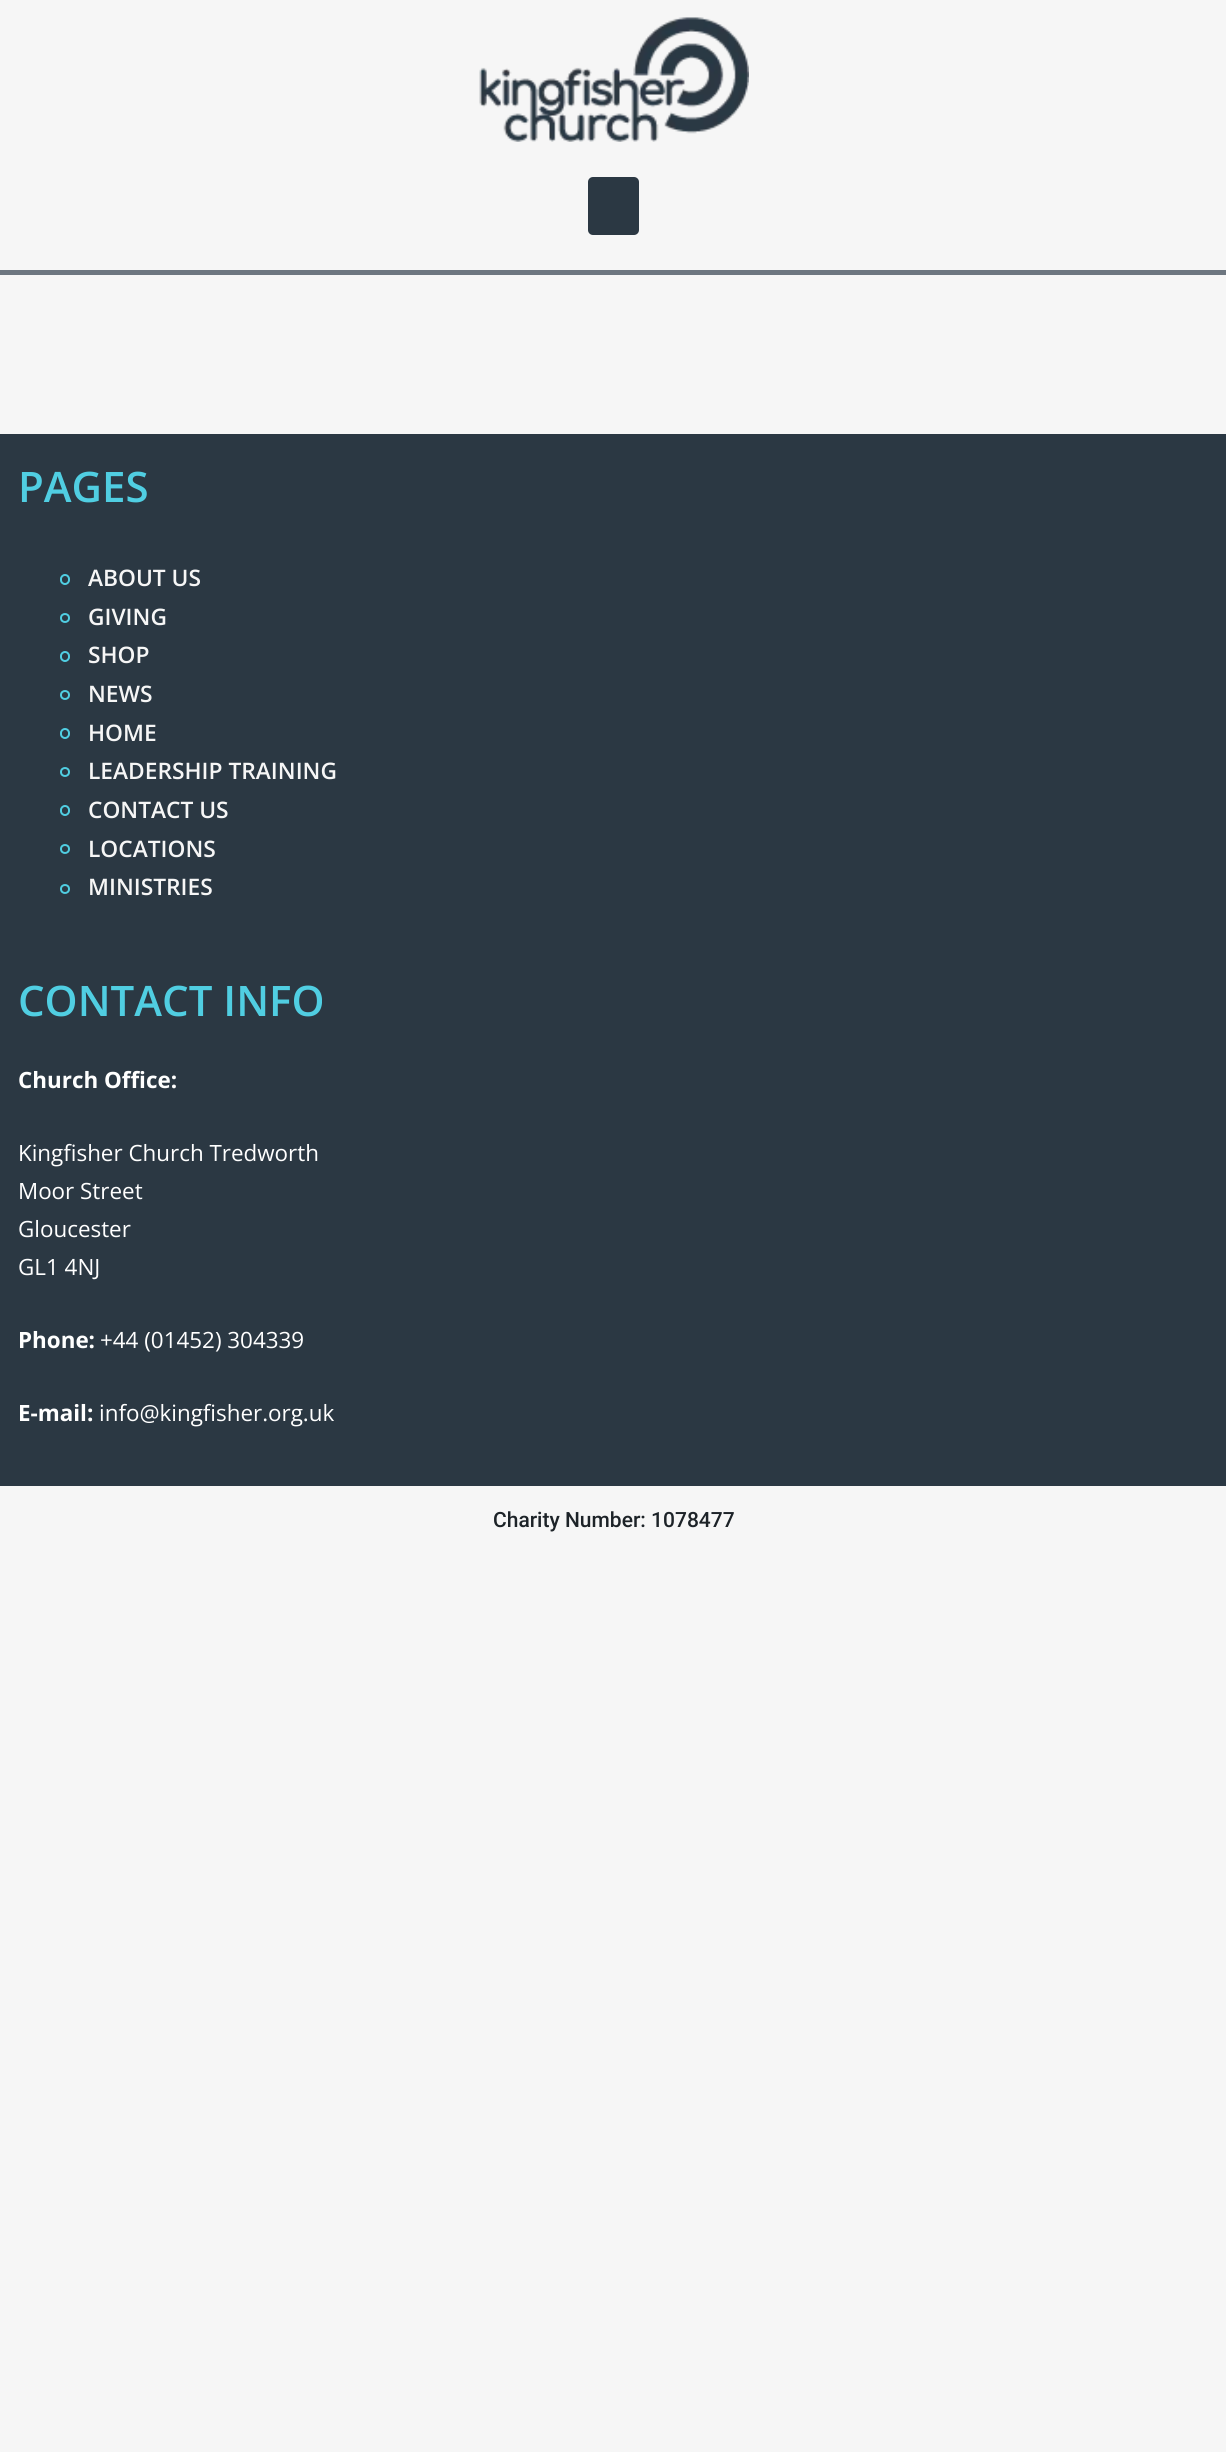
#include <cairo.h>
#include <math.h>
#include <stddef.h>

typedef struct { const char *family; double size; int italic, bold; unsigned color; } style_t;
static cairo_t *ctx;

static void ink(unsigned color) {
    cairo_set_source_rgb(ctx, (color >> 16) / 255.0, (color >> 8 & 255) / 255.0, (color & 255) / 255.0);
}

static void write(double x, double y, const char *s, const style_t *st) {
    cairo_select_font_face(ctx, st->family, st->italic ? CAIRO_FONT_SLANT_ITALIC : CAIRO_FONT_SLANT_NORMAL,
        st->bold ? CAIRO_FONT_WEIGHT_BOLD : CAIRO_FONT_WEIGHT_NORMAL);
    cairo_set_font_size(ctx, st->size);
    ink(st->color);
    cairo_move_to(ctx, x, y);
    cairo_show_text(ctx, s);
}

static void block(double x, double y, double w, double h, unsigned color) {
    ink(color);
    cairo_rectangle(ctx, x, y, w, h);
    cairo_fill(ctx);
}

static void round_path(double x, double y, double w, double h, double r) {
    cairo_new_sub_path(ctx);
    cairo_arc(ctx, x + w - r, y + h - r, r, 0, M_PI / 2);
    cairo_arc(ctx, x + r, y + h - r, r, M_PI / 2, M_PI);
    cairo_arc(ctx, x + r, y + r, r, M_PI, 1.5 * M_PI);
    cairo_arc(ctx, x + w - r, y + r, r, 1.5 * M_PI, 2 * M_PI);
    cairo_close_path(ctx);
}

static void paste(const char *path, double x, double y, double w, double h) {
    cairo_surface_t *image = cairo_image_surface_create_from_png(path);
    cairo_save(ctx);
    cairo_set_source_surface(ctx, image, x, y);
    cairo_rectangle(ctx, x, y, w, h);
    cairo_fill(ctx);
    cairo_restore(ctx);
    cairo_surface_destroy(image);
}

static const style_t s1 = {"Open Sans SemiBold", 42, 0, 0, 0x50cee2};
static const style_t s2 = {"Open Sans SemiBold", 22.75, 0, 0, 0xf6f6f6};
static const style_t s3 = {"Open Sans", 22.4, 0, 1, 0xffffff};
static const style_t s4 = {"Open Sans", 22.4, 0, 0, 0xffffff};
static const style_t s5 = {"Roboto Medium", 21, 0, 0, 0x1d2328};

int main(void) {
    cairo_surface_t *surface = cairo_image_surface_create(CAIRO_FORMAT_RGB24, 1226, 2452);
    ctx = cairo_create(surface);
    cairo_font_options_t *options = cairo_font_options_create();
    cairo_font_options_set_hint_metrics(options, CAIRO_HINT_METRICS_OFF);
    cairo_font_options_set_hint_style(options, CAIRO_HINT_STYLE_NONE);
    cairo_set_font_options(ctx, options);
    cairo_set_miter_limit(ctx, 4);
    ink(0xf6f6f6);
    cairo_paint(ctx);
    block(0, 270, 1226, 5, 0x6d7680);
    paste("pic1.png", 479, 17, 270, 125);
    ink(0x2b3843);
    round_path(588, 177, 51, 58, 5);
    cairo_fill(ctx);
    block(0, 434, 1226, 1052, 0x2b3843);
    write(18, 502, "PAGES", &s1);
    round_path(61, 575, 8, 9, 4);
    cairo_stroke(ctx);
    write(88, 586, "ABOUT US", &s2);
    cairo_new_path(ctx);
    cairo_arc(ctx, 65, 618, 4, 0, 2 * M_PI);
    ink(0x50cee2);
    cairo_stroke(ctx);
    write(88, 625, "GIVING", &s2);
    round_path(61, 652, 8, 9, 4);
    ink(0x50cee2);
    cairo_stroke(ctx);
    write(88, 663, "SHOP", &s2);
    cairo_new_path(ctx);
    cairo_arc(ctx, 65, 695, 4, 0, 2 * M_PI);
    ink(0x50cee2);
    cairo_stroke(ctx);
    write(88, 702, "NEWS", &s2);
    round_path(61, 729, 8, 9, 4);
    ink(0x50cee2);
    cairo_stroke(ctx);
    write(88, 741, "HOME", &s2);
    cairo_new_path(ctx);
    cairo_arc(ctx, 65, 772, 4, 0, 2 * M_PI);
    ink(0x50cee2);
    cairo_stroke(ctx);
    write(88, 779, "LEADERSHIP TRAINING", &s2);
    round_path(61, 806, 8, 9, 4);
    ink(0x50cee2);
    cairo_stroke(ctx);
    write(88, 818, "CONTACT US", &s2);
    cairo_new_path(ctx);
    cairo_arc(ctx, 65, 849, 4, 0, 2 * M_PI);
    ink(0x50cee2);
    cairo_stroke(ctx);
    write(88, 857, "LOCATIONS", &s2);
    cairo_new_path(ctx);
    cairo_arc(ctx, 65, 889, 4, 0, 2 * M_PI);
    ink(0x50cee2);
    cairo_stroke(ctx);
    write(88, 895, "MINISTRIES", &s2);
    write(18, 1016, "CONTACT INFO", &s1);
    write(18, 1088, "Church Office:", &s3);
    write(18, 1161, "Kingfisher Church Tredworth", &s4);
    write(18, 1199, "Moor Street", &s4);
    write(18, 1237, "Gloucester", &s4);
    write(18, 1275, "GL1 4NJ", &s4);
    write(18, 1348, "Phone:", &s3);
    write(100, 1348, "+44 (01452) 304339", &s4);
    write(18, 1421, "E-mail:", &s3);
    write(99, 1421, "info@kingfisher.org.uk", &s4);
    write(493, 1527, "Charity Number: 1078477", &s5);
    cairo_surface_write_to_png(surface, "screenshot.png");
    cairo_font_options_destroy(options);
    cairo_destroy(ctx);
    cairo_surface_destroy(surface);
    return 0;
}
